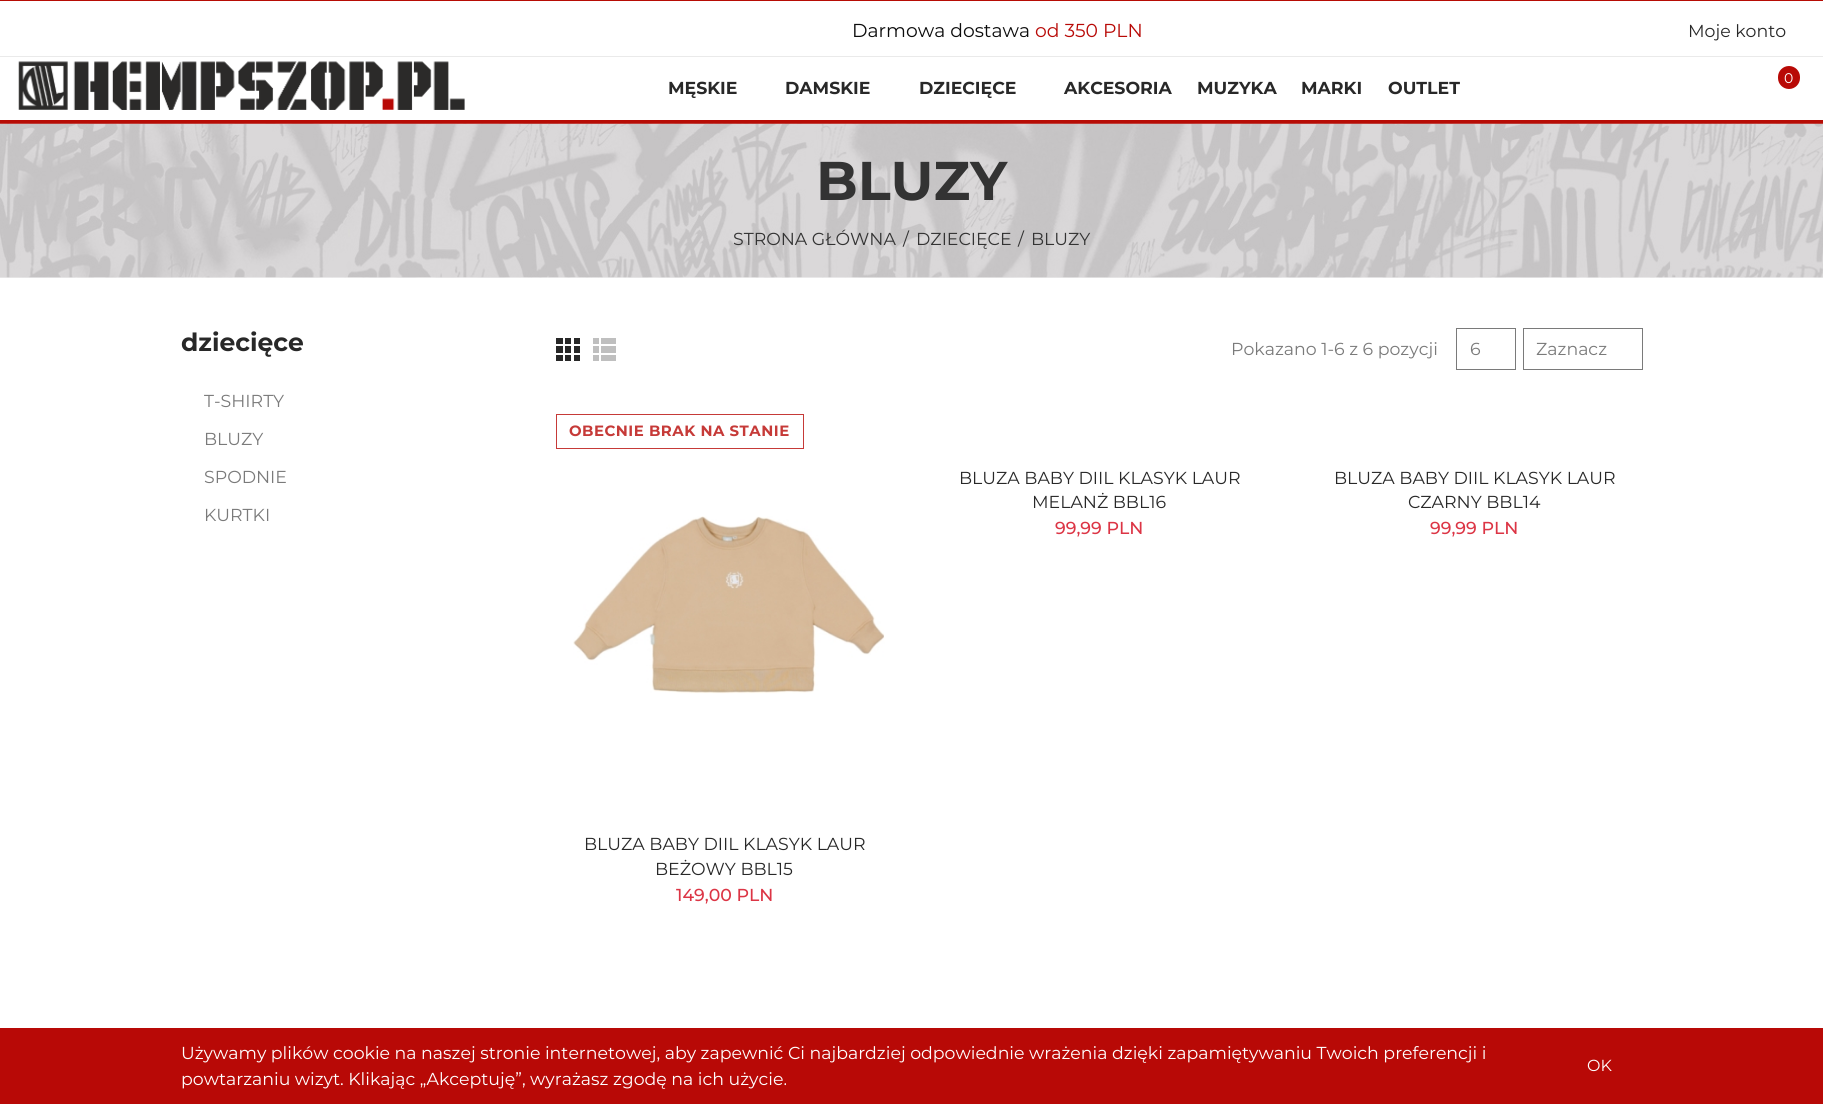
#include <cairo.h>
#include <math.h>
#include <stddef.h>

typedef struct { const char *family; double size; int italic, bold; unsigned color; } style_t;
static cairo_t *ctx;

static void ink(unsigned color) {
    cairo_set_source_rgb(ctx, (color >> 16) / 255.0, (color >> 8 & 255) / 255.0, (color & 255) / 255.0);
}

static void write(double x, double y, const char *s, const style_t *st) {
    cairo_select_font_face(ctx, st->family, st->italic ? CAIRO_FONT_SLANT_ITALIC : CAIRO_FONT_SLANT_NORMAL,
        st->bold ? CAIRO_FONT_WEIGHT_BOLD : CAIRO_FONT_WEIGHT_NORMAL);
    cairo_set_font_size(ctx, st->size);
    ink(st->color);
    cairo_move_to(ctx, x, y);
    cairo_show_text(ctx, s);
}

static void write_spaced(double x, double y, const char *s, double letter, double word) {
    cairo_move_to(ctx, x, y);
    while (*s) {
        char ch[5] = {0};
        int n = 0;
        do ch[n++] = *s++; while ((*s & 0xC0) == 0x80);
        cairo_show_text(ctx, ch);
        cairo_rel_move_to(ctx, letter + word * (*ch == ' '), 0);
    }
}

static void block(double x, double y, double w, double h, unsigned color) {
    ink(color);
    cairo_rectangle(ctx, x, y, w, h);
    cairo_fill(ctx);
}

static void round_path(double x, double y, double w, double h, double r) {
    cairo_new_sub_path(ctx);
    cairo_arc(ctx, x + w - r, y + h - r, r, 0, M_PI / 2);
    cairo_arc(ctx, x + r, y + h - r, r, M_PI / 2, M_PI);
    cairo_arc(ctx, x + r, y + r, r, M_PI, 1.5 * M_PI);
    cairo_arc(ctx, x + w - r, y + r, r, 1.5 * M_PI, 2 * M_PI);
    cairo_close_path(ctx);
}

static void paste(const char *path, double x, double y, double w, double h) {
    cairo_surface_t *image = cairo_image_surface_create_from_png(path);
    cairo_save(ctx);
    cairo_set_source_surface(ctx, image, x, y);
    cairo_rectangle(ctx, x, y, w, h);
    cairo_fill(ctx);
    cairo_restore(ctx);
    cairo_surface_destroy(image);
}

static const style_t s1 = {"Montserrat", 18.75, 0, 0, 0x0c0c0c};
static const style_t s2 = {"Montserrat", 18.75, 0, 0, 0xb80906};
static const style_t s3 = {"Montserrat", 17.35, 0, 0, 0x282828};
static const style_t s4 = {"Montserrat", 14, 0, 0, 0xffffff};
static const style_t s5 = {"Montserrat", 17.35, 0, 1, 0x282828};
static const style_t s6 = {"Montserrat", 54.5, 0, 1, 0x333333};
static const style_t s7 = {"Montserrat", 17.35, 0, 0, 0x333333};
static const style_t s8 = {"Montserrat", 25, 0, 1, 0x282828};
static const style_t s9 = {"Montserrat", 17.35, 0, 0, 0x7a7a7a};
static const style_t s10 = {"Montserrat Medium", 17.35, 0, 0, 0xdc3545};
static const style_t s11 = {"Montserrat", 17.35, 0, 0, 0xffffff};
static const style_t s12 = {"Montserrat", 16, 0, 0, 0xffffff};

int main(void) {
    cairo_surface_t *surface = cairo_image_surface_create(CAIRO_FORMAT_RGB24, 1823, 1104);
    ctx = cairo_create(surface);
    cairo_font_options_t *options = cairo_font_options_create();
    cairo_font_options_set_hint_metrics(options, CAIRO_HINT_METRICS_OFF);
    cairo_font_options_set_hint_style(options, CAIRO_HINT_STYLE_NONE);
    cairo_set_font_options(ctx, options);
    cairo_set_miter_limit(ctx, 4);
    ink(0xffffff);
    cairo_paint(ctx);
    block(0, 0, 1823, 1, 0xb70c05);
    block(0, 56, 1823, 1, 0xeaeaea);
    write(852, 37, "Darmowa dostawa", &s1);
    write(1035, 37, "od 350 PLN", &s2);
    write(1688, 37, "Moje konto", &s3);
    block(0, 120, 1823, 4, 0xb70c05);
    paste("pic1.png", 18, 61, 447, 49);
    ink(0xb80906);
    round_path(1778, 66, 22, 23, 11);
    cairo_fill(ctx);
    write(1784, 83, "0", &s4);
    write(668, 94, "MĘSKIE", &s5);
    write(785, 94, "DAMSKIE", &s5);
    write(919, 94, "DZIECIĘCE", &s5);
    write(1064, 94, "AKCESORIA", &s5);
    write(1197, 94, "MUZYKA", &s5);
    write(1301, 94, "MARKI", &s5);
    write(1388, 94, "OUTLET", &s5);
    block(0, 277, 1823, 1, 0xf9f9f9);
    paste("pic2.png", 0, 123, 1823, 155);
    write(816, 200, "BLUZY", &s6);
    write(733, 245, "STRONA GŁÓWNA", &s7);
    write(903, 245, "/", &s7);
    write(916, 245, "DZIECIĘCE", &s7);
    write(1018, 245, "/", &s7);
    write(1031, 245, "BLUZY", &s7);
    write(181, 351, "dziecięce", &s8);
    write(204, 407, "T-SHIRTY", &s9);
    write(204, 445, "BLUZY", &s9);
    write(204, 483, "SPODNIE", &s9);
    write(204, 521, "KURTKI", &s9);
    paste("pic3.png", 556, 338, 24, 23);
    paste("pic4.png", 593, 338, 23, 23);
    write(1231, 355, "Pokazano 1-6 z 6 pozycji", &s9);
    cairo_rectangle(ctx, 1456.5, 328.5, 59, 41);
    cairo_set_line_width(ctx, 1);
    cairo_stroke(ctx);
    write(1470, 355, "6", &s9);
    cairo_rectangle(ctx, 1523.5, 328.5, 119, 41);
    cairo_stroke(ctx);
    write(1536, 355, "Zaznacz", &s9);
    cairo_rectangle(ctx, 556.5, 414.5, 247, 34);
    ink(0xc63a38);
    cairo_stroke(ctx);
    cairo_select_font_face(ctx, "Montserrat", CAIRO_FONT_SLANT_NORMAL, CAIRO_FONT_WEIGHT_BOLD);
    cairo_set_font_size(ctx, 14.9);
    write_spaced(569, 436, "OBECNIE BRAK NA STANIE", 0.5, 0);
    paste("pic5.png", 573, 516, 312, 178);
    write(584, 850, "BLUZA BABY DIIL KLASYK LAUR", &s3);
    write(655, 875, "BEŻOWY BBL15", &s3);
    write(676, 901, "149,00 PLN", &s10);
    write(959, 484, "BLUZA BABY DIIL KLASYK LAUR", &s3);
    write(1032, 508, "MELANŻ BBL16", &s3);
    write(1055, 534, "99,99 PLN", &s10);
    write(1334, 484, "BLUZA BABY DIIL KLASYK LAUR", &s3);
    write(1408, 508, "CZARNY BBL14", &s3);
    write(1430, 534, "99,99 PLN", &s10);
    block(0, 1028, 1823, 76, 0xb80906);
    write(181, 1059, "Używamy plików cookie na naszej stronie internetowej, aby zapewnić Ci najbardziej odpowiednie wrażenia dzięki zapamiętywaniu Twoich preferencji i", &s11);
    write(181, 1085, "powtarzaniu wizyt. Klikając „Akceptuję”, wyrażasz zgodę na ich użycie.", &s11);
    write(1587, 1071, "OK", &s12);
    cairo_surface_write_to_png(surface, "screenshot.png");
    cairo_font_options_destroy(options);
    cairo_destroy(ctx);
    cairo_surface_destroy(surface);
    return 0;
}
